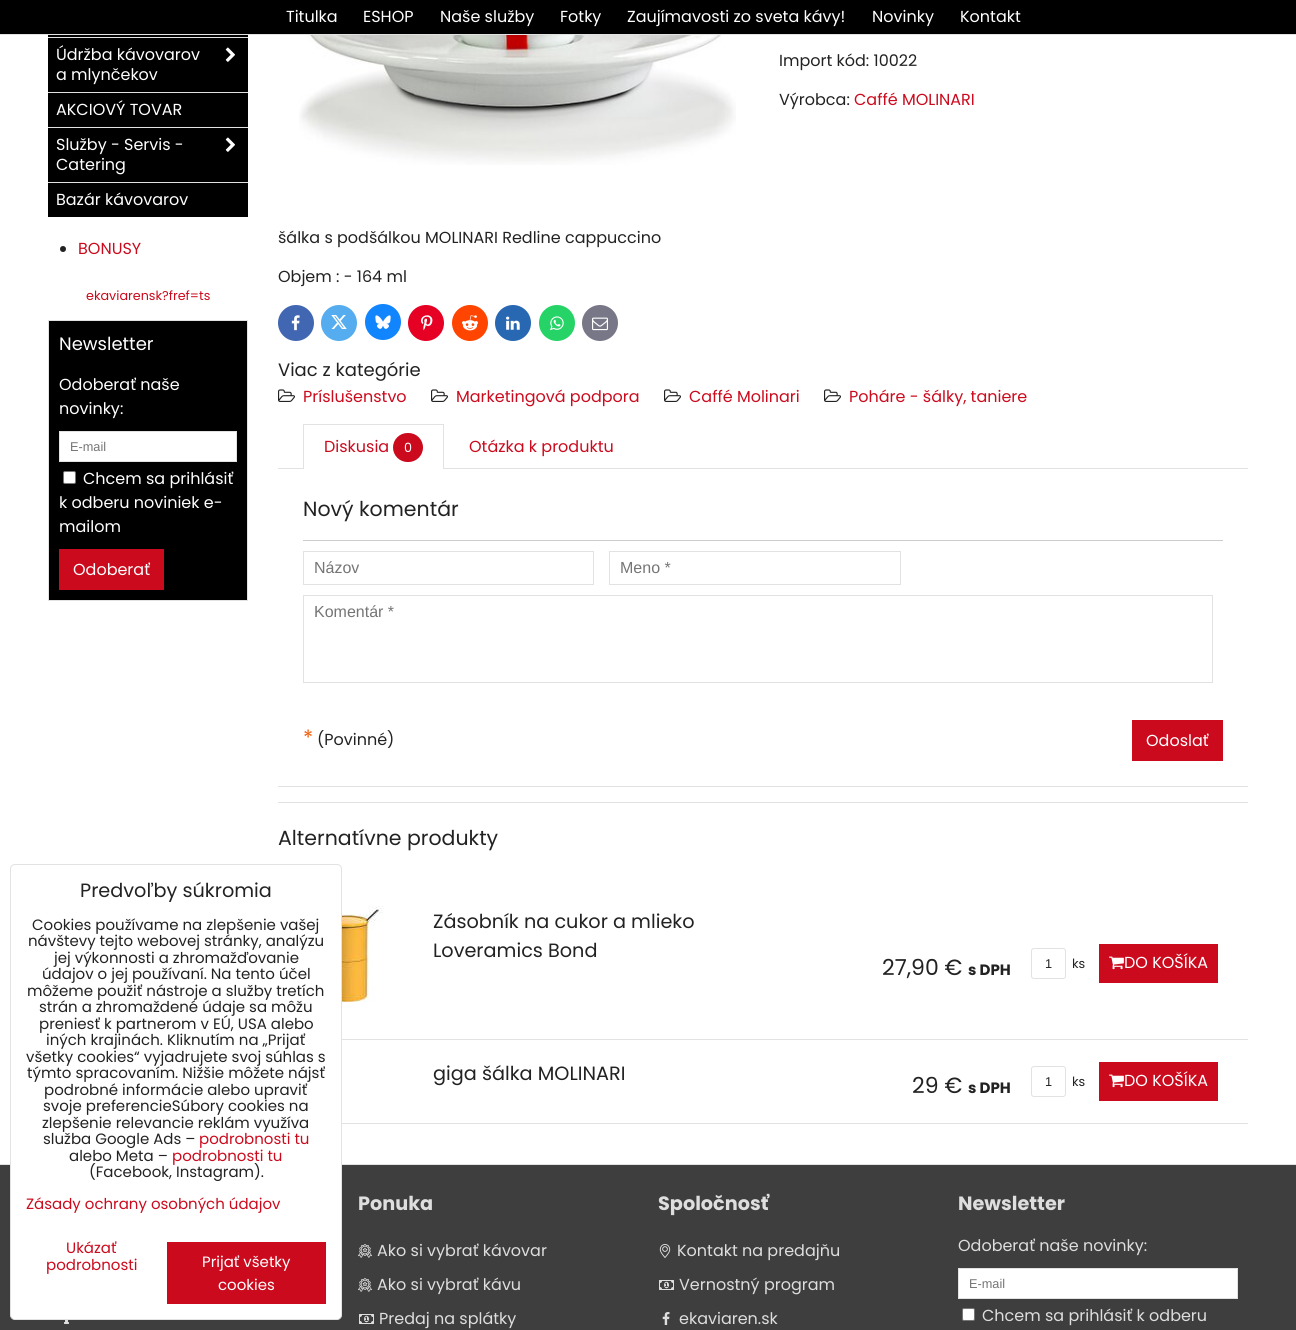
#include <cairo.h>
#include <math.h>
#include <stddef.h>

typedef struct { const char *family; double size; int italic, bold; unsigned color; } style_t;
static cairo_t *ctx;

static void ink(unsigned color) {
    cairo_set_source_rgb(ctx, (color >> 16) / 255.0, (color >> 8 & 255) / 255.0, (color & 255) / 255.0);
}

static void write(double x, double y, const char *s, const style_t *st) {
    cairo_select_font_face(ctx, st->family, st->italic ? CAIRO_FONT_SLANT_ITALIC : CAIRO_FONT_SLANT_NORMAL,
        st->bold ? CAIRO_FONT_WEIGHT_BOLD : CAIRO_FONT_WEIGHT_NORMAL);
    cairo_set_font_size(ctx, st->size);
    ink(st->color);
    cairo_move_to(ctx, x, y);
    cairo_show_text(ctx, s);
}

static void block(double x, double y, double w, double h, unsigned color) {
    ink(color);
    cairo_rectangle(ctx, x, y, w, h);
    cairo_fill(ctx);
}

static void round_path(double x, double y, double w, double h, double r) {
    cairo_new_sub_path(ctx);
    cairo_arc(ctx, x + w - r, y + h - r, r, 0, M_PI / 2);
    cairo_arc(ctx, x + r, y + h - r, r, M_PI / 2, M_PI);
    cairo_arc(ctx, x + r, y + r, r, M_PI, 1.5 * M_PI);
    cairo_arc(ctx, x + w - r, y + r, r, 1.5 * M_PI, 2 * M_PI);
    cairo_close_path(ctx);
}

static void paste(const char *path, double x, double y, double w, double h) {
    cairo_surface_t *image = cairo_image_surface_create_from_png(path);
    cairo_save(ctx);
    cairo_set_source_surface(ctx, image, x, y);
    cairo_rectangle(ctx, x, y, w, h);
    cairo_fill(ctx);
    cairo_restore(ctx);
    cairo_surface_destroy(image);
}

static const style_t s1 = {"Poppins", 16, 0, 0, 0xffffff};
static const style_t s2 = {"Poppins", 16, 0, 0, 0xcb0a1d};
static const style_t s3 = {"Poppins", 12.75, 0, 0, 0xcb0a1d};
static const style_t s4 = {"Poppins", 18, 0, 0, 0xffffff};
static const style_t s5 = {"Liberation Sans", 12.75, 0, 0, 0x757575};
static const style_t s6 = {"Poppins", 16, 0, 0, 0x222222};
static const style_t s7 = {"Poppins", 18, 0, 0, 0x222222};
static const style_t s8 = {"Poppins", 12.75, 0, 0, 0xffffff};
static const style_t s9 = {"Poppins", 20.5, 0, 0, 0x222222};
static const style_t s10 = {"Liberation Sans", 16, 0, 0, 0x757575};
static const style_t s11 = {"Poppins", 21, 0, 0, 0xf05e0f};
static const style_t s12 = {"Poppins", 19.25, 0, 0, 0x222222};
static const style_t s13 = {"Poppins", 22, 0, 0, 0x222222};
static const style_t s14 = {"Poppins", 15, 0, 1, 0x222222};
static const style_t s15 = {"Liberation Sans", 12.75, 0, 0, 0x222222};
static const style_t s16 = {"Poppins", 12.75, 0, 0, 0x222222};
static const style_t s17 = {"Poppins", 19.25, 0, 1, 0xdedede};
static const style_t s18 = {"Poppins", 16, 0, 0, 0xdedede};
static const style_t s19 = {"Poppins", 15, 0, 0, 0x222222};
static const style_t s20 = {"Poppins", 15, 0, 0, 0xcb0a1d};
static const style_t s21 = {"Poppins", 15, 0, 0, 0xffffff};

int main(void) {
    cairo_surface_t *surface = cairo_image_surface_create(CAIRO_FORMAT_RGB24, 1296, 1330);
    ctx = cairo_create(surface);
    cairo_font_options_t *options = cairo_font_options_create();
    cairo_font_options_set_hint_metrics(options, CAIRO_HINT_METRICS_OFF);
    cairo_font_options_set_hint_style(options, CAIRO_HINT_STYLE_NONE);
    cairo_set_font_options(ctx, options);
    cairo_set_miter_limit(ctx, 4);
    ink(0xffffff);
    cairo_paint(ctx);
    block(0, 0, 1296, 34, 0x000000);
    block(0, 34, 1296, 1, 0xe2e2e2);
    write(286, 22, "Titulka", &s1);
    write(363, 22, "ESHOP", &s1);
    write(440, 22, "Naše služby", &s1);
    write(560, 22, "Fotky", &s1);
    write(627, 22, "Zaujímavosti zo sveta kávy!", &s1);
    write(872, 22, "Novinky", &s1);
    write(960, 22, "Kontakt", &s1);
    block(48, 35, 200, 182, 0x000000);
    block(48, 37, 200, 1, 0xe2e2e2);
    block(48, 92, 200, 1, 0xe2e2e2);
    write(56, 60, "Údržba kávovarov", &s1);
    paste("pic1.png", 225, 47, 10, 15);
    write(56, 80, "a mlynčekov", &s1);
    block(48, 127, 200, 1, 0xe2e2e2);
    write(56, 115, "AKCIOVÝ TOVAR", &s1);
    block(48, 182, 200, 1, 0xe2e2e2);
    write(56, 150, "Služby - Servis -", &s1);
    paste("pic1.png", 225, 137, 10, 15);
    write(56, 170, "Catering", &s1);
    write(56, 205, "Bazár kávovarov", &s1);
    ink(0x222222);
    cairo_new_path(ctx);
    cairo_arc(ctx, 63, 249, 3, 0, 2 * M_PI);
    cairo_fill(ctx);
    write(78, 254, "BONUSY", &s2);
    write(86, 300, "ekaviarensk?fref=ts", &s3);
    ink(0x000000);
    cairo_rectangle(ctx, 48.5, 320.5, 199, 280);
    cairo_fill_preserve(ctx);
    ink(0xe2e2e2);
    cairo_set_line_width(ctx, 1);
    cairo_stroke(ctx);
    write(59, 350, "Newsletter", &s4);
    write(59, 390, "Odoberať naše", &s1);
    write(59, 414, "novinky:", &s1);
    cairo_rectangle(ctx, 59.5, 431.5, 177, 30);
    cairo_fill_preserve(ctx);
    ink(0xe2e2e2);
    cairo_stroke(ctx);
    write(70, 451, "E-mail", &s5);
    ink(0xffffff);
    round_path(63.5, 471.5, 12, 12, 1.5);
    cairo_fill_preserve(ctx);
    ink(0x767676);
    cairo_stroke(ctx);
    write(83, 484, "Chcem sa prihlásiť", &s1);
    write(59, 508, "k odberu noviniek e-", &s1);
    write(59, 532, "mailom", &s1);
    block(59, 549, 105, 41, 0xcb0a1d);
    write(73, 575, "Odoberať", &s1);
    paste("pic2.png", 299, 35, 437, 130);
    write(779, 66, "Import kód: 10022", &s6);
    write(779, 105, "Výrobca:", &s6);
    write(854, 105, "Caffé MOLINARI", &s2);
    write(278, 243, "šálka s podšálkou MOLINARI Redline cappuccino", &s6);
    write(278, 282, "Objem : - 164 ml", &s6);
    ink(0x4267b2);
    cairo_new_path(ctx);
    cairo_arc(ctx, 296, 323, 18, 0, 2 * M_PI);
    cairo_fill(ctx);
    paste("pic3.png", 291, 315, 9, 16);
    ink(0x55acee);
    cairo_arc(ctx, 339, 323, 18, 0, 2 * M_PI);
    cairo_fill(ctx);
    paste("pic4.png", 331, 315, 16, 14);
    ink(0x1185fe);
    cairo_arc(ctx, 383, 322, 18, 0, 2 * M_PI);
    cairo_fill(ctx);
    paste("pic5.png", 375, 315, 16, 14);
    ink(0xe60023);
    cairo_arc(ctx, 426, 323, 18, 0, 2 * M_PI);
    cairo_fill(ctx);
    paste("pic6.png", 421, 315, 12, 16);
    ink(0xff4500);
    cairo_arc(ctx, 470, 323, 18, 0, 2 * M_PI);
    cairo_fill(ctx);
    paste("pic7.png", 462, 315, 16, 16);
    ink(0x2867b2);
    cairo_arc(ctx, 513, 323, 18, 0, 2 * M_PI);
    cairo_fill(ctx);
    paste("pic8.png", 506, 316, 14, 14);
    ink(0x25d366);
    cairo_arc(ctx, 557, 323, 18, 0, 2 * M_PI);
    cairo_fill(ctx);
    paste("pic9.png", 550, 316, 14, 15);
    ink(0x777788);
    cairo_arc(ctx, 600, 323, 18, 0, 2 * M_PI);
    cairo_fill(ctx);
    paste("pic10.png", 592, 317, 16, 14);
    write(278, 376, "Viac z kategórie", &s7);
    paste("pic11.png", 278, 389, 17, 13);
    write(303, 402, "Príslušenstvo", &s2);
    paste("pic11.png", 431, 389, 17, 13);
    write(456, 402, "Marketingová podpora", &s2);
    paste("pic11.png", 664, 389, 17, 13);
    write(689, 402, "Caffé Molinari", &s2);
    paste("pic11.png", 824, 389, 17, 13);
    write(849, 402, "Poháre - šálky, taniere", &s2);
    block(278, 468, 970, 1, 0xe2e2e2);
    block(304, 468, 139, 1, 0xffffff);
    block(303, 424, 141, 1, 0xe2e2e2);
    block(443, 424, 1, 45, 0xe2e2e2);
    block(303, 424, 1, 45, 0xe2e2e2);
    write(324, 452, "Diskusia", &s2);
    round_path(393, 433, 30, 29, 14.5);
    cairo_fill(ctx);
    write(404, 452, "0", &s8);
    write(469, 452, "Otázka k produktu", &s2);
    block(278, 786, 970, 1, 0xe2e2e2);
    write(303, 516, "Nový komentár", &s9);
    block(303, 540, 920, 1, 0xcccccc);
    cairo_rectangle(ctx, 303.5, 551.5, 290, 33);
    ink(0xe2e2e2);
    cairo_stroke(ctx);
    write(314, 573, "Názov", &s10);
    cairo_rectangle(ctx, 609.5, 551.5, 291, 33);
    ink(0xe2e2e2);
    cairo_stroke(ctx);
    write(620, 573, "Meno *", &s10);
    cairo_rectangle(ctx, 303.5, 595.5, 909, 87);
    ink(0xe2e2e2);
    cairo_stroke(ctx);
    write(314, 617, "Komentár *", &s10);
    write(303, 745, "*", &s11);
    write(317, 745, "(Povinné)", &s6);
    block(1132, 720, 91, 41, 0xcb0a1d);
    write(1146, 746, "Odoslať", &s1);
    block(278, 802, 970, 1, 0xe2e2e2);
    write(278, 845, "Alternatívne produkty", &s9);
    paste("pic12.png", 342, 906, 42, 96);
    block(342, 1039, 906, 1, 0xe2e2e2);
    write(433, 928, "Zásobník na cukor a mlieko", &s12);
    write(433, 957, "Loveramics Bond", &s12);
    write(882, 975, "27,90 €", &s13);
    write(968, 975, "s DPH", &s14);
    round_path(1031.5, 948.5, 34, 30, 2.5);
    ink(0xe2e2e2);
    cairo_stroke(ctx);
    write(1045, 968, "1", &s15);
    write(1072, 968, "ks", &s16);
    block(1099, 944, 119, 39, 0xcb0a1d);
    paste("pic13.png", 1109, 956, 15, 14);
    write(1124, 968, "DO KOŠÍKA", &s1);
    block(342, 1123, 906, 1, 0xe2e2e2);
    write(433, 1080, "giga šálka MOLINARI", &s12);
    write(912, 1093, "29 €", &s13);
    write(968, 1093, "s DPH", &s14);
    round_path(1031.5, 1066.5, 34, 30, 2.5);
    ink(0xe2e2e2);
    cairo_stroke(ctx);
    write(1045, 1086, "1", &s15);
    write(1072, 1086, "ks", &s16);
    block(1099, 1062, 119, 39, 0xcb0a1d);
    paste("pic13.png", 1109, 1074, 15, 14);
    write(1124, 1086, "DO KOŠÍKA", &s1);
    block(0, 1165, 1296, 165, 0x3f3e3e);
    block(0, 1164, 1296, 1, 0xe2e2e2);
    paste("pic14.png", 64, 1320, 5, 4);
    write(358, 1210, "Ponuka", &s17);
    paste("pic15.png", 358, 1244, 14, 14);
    write(377, 1256, "Ako si vybrať kávovar", &s18);
    paste("pic15.png", 358, 1278, 14, 14);
    write(377, 1290, "Ako si vybrať kávu", &s18);
    paste("pic16.png", 359, 1314, 15, 10);
    write(379, 1324, "Predaj na splátky", &s18);
    write(658, 1210, "Spoločnosť", &s17);
    paste("pic17.png", 659, 1244, 12, 14);
    write(677, 1256, "Kontakt na predajňu", &s18);
    paste("pic16.png", 659, 1280, 15, 10);
    write(679, 1290, "Vernostný program", &s18);
    paste("pic18.png", 662, 1312, 8, 13);
    write(679, 1324, "ekaviaren.sk", &s18);
    write(958, 1210, "Newsletter", &s17);
    write(958, 1251, "Odoberať naše novinky:", &s18);
    ink(0xffffff);
    cairo_rectangle(ctx, 958.5, 1268.5, 279, 30);
    cairo_fill_preserve(ctx);
    ink(0xe2e2e2);
    cairo_stroke(ctx);
    write(969, 1288, "E-mail", &s5);
    ink(0xffffff);
    round_path(962.5, 1308.5, 12, 12, 1.5);
    cairo_fill_preserve(ctx);
    ink(0x767676);
    cairo_stroke(ctx);
    write(982, 1321, "Chcem sa prihlásiť k odberu", &s18);
    ink(0xffffff);
    round_path(10.5, 864.5, 331, 455, 4.5);
    cairo_fill_preserve(ctx);
    ink(0xe2e2e2);
    cairo_stroke(ctx);
    write(80, 897, "Predvoľby súkromia", &s12);
    write(32, 930, "Cookies používame na zlepšenie vašej", &s19);
    write(28, 946, "návštevy tejto webovej stránky, analýzu", &s19);
    write(54, 963, "jej výkonnosti a zhromažďovanie", &s19);
    write(42, 979, "údajov o jej používaní. Na tento účel", &s19);
    write(27, 996, "môžeme použiť nástroje a služby tretích", &s19);
    write(39, 1012, "strán a zhromaždené údaje sa môžu", &s19);
    write(39, 1029, "preniesť k partnerom v EÚ, USA alebo", &s19);
    write(46, 1045, "iných krajinách. Kliknutím na „Prijať", &s19);
    write(26, 1062, "všetky cookies“ vyjadrujete svoj súhlas s", &s19);
    write(27, 1078, "týmto spracovaním. Nižšie môžete nájsť", &s19);
    write(44, 1095, "podrobné informácie alebo upraviť", &s19);
    write(43, 1111, "svoje preferencieSúbory cookies na", &s19);
    write(42, 1128, "zlepšenie relevancie reklám využíva", &s19);
    write(43, 1144, "služba Google Ads –", &s19);
    write(199, 1144, "podrobnosti tu", &s20);
    write(69, 1161, "alebo Meta –", &s19);
    write(172, 1161, "podrobnosti tu", &s20);
    write(89, 1177, "(Facebook, Instagram).", &s19);
    write(26, 1209, "Zásady ochrany osobných údajov", &s20);
    write(66, 1253, "Ukázať", &s20);
    write(46, 1270, "podrobnosti", &s20);
    block(167, 1242, 159, 62, 0xcb0a1d);
    write(202, 1267, "Prijať všetky", &s21);
    write(218, 1290, "cookies", &s21);
    cairo_surface_write_to_png(surface, "screenshot.png");
    cairo_font_options_destroy(options);
    cairo_destroy(ctx);
    cairo_surface_destroy(surface);
    return 0;
}
